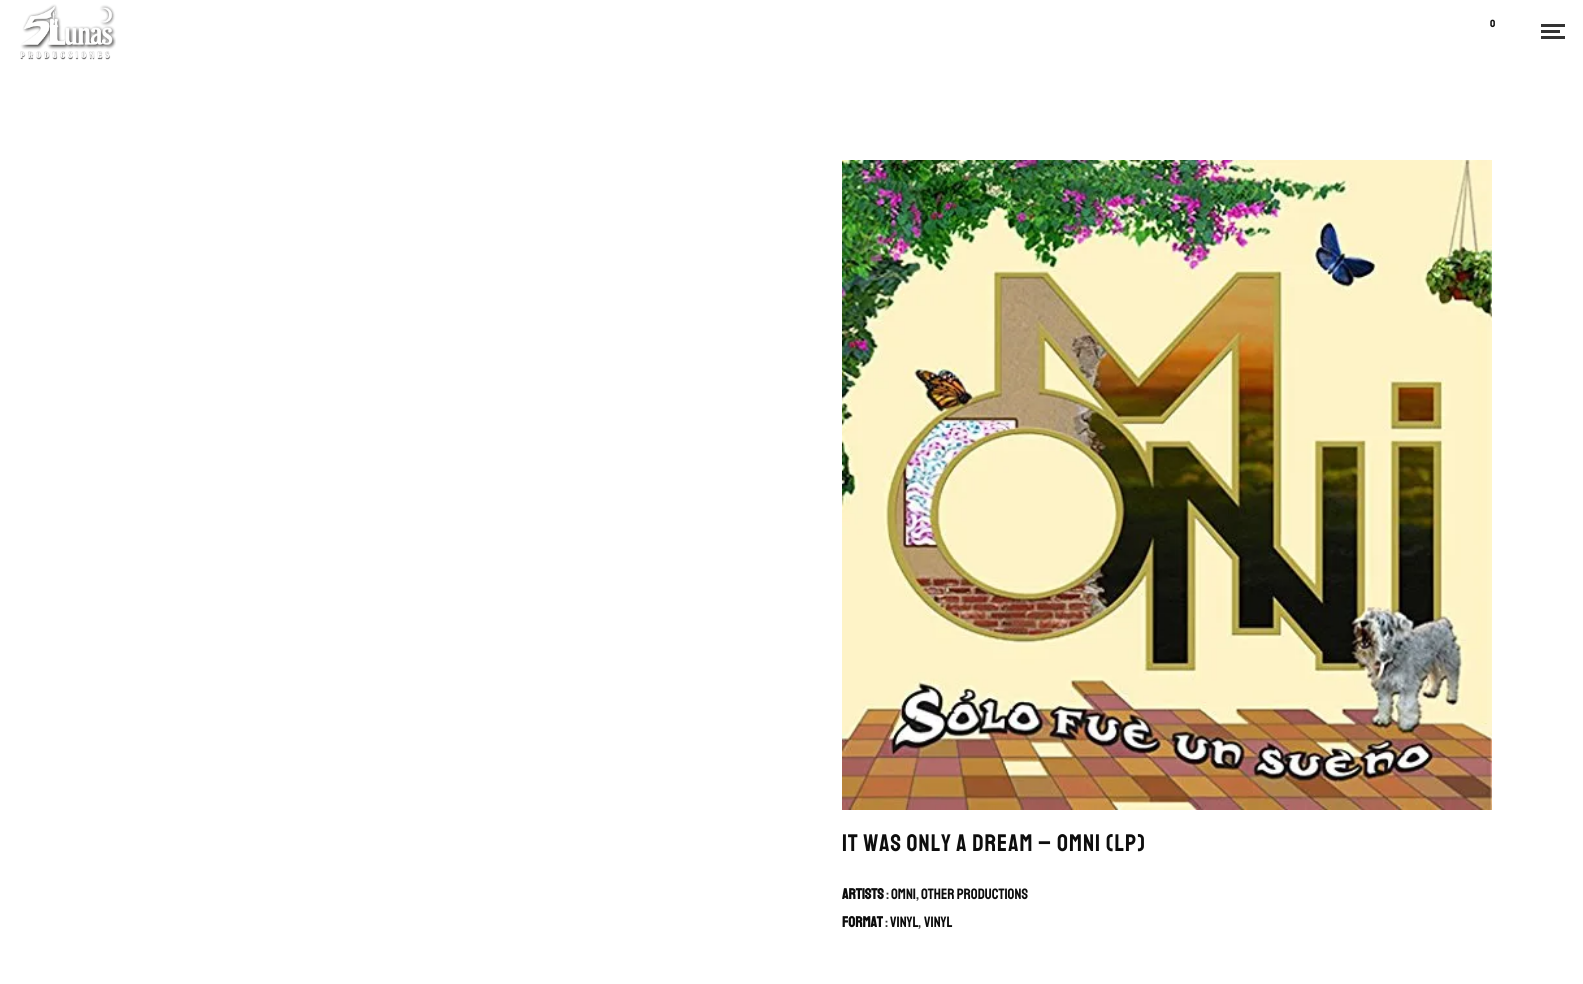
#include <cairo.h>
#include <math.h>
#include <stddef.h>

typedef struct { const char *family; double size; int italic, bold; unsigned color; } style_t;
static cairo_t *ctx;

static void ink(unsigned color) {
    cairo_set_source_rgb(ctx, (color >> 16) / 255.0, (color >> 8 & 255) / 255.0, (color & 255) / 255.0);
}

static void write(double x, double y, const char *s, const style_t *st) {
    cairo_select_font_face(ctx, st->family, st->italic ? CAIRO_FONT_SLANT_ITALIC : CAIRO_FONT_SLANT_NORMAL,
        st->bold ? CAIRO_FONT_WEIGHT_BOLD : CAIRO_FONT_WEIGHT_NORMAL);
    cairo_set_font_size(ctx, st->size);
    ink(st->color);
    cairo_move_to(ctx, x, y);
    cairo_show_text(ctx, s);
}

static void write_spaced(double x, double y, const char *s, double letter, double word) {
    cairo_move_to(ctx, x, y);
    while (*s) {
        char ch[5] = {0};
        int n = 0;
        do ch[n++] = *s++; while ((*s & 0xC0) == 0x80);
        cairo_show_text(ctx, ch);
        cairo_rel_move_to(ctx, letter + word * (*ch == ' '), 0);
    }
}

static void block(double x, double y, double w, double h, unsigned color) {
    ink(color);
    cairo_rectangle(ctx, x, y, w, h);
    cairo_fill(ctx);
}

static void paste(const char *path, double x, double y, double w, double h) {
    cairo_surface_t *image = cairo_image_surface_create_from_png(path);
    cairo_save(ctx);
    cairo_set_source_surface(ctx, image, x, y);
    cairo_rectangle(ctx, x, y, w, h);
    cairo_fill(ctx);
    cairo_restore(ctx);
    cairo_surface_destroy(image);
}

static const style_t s1 = {"Staatliches", 15, 0, 1, 0x0d0d0d};
static const style_t s2 = {"Staatliches", 15, 0, 0, 0x333333};
static const style_t s3 = {"Staatliches", 15, 0, 0, 0x0d0d0d};

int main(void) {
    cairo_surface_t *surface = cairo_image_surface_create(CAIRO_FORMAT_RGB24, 1583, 984);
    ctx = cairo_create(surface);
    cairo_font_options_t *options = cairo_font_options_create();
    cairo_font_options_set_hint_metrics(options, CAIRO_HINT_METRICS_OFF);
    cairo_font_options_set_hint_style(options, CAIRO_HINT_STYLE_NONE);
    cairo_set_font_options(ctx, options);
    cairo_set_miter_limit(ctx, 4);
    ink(0xffffff);
    cairo_paint(ctx);
    paste("pic1.png", 20, 4, 96, 56);
    cairo_select_font_face(ctx, "Staatliches", CAIRO_FONT_SLANT_NORMAL, CAIRO_FONT_WEIGHT_BOLD);
    cairo_set_font_size(ctx, 10);
    ink(0x0d0d0d);
    write_spaced(1490, 27, "0", 1, 0);
    block(1541, 24, 24, 3, 0x333333);
    block(1541, 30, 19, 3, 0x333333);
    block(1541, 36, 24, 3, 0x333333);
    paste("pic2.png", 842, 160, 650, 650);
    cairo_select_font_face(ctx, "Staatliches", CAIRO_FONT_SLANT_NORMAL, CAIRO_FONT_WEIGHT_NORMAL);
    cairo_set_font_size(ctx, 24);
    ink(0x0d0d0d);
    write_spaced(842, 851, "IT WAS ONLY A DREAM – OMNI (LP)", 1, 0);
    write(842, 899, "Artists", &s1);
    write(886, 899, ":", &s2);
    write(891, 899, "Omni", &s3);
    write(916, 899, ",", &s2);
    write(921, 899, "Other Productions", &s3);
    write(842, 927, "Format", &s1);
    write(885, 927, ":", &s2);
    write(890, 927, "Vinyl", &s3);
    write(918, 927, ",", &s2);
    write(924, 927, "Vinyl", &s3);
    cairo_surface_write_to_png(surface, "screenshot.png");
    cairo_font_options_destroy(options);
    cairo_destroy(ctx);
    cairo_surface_destroy(surface);
    return 0;
}
